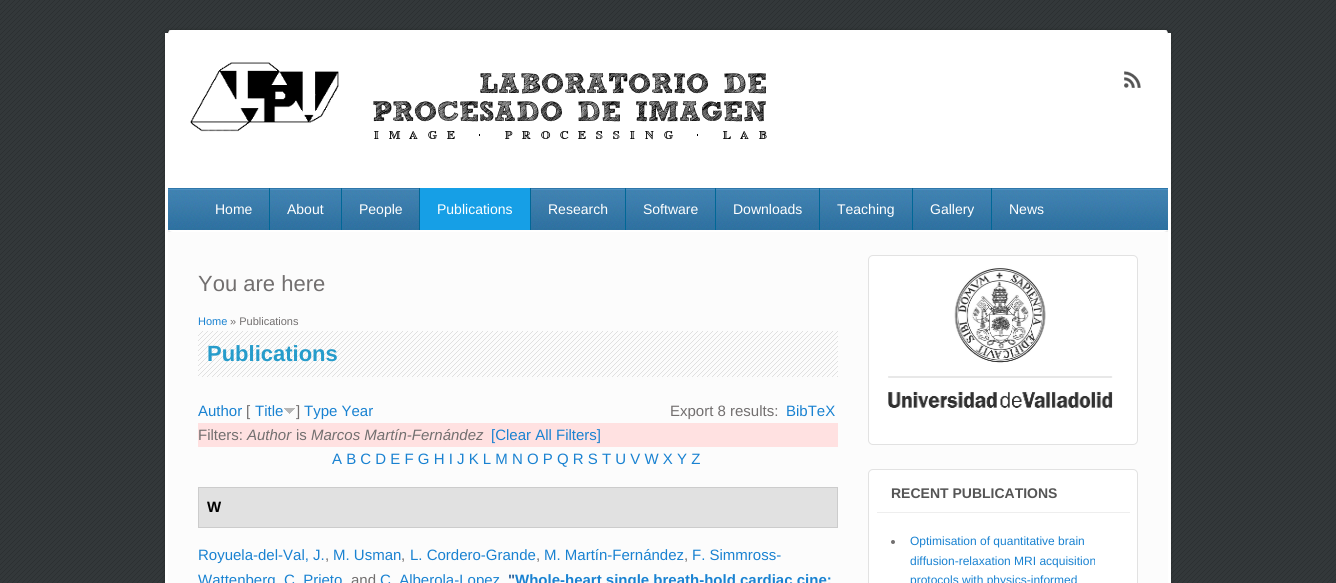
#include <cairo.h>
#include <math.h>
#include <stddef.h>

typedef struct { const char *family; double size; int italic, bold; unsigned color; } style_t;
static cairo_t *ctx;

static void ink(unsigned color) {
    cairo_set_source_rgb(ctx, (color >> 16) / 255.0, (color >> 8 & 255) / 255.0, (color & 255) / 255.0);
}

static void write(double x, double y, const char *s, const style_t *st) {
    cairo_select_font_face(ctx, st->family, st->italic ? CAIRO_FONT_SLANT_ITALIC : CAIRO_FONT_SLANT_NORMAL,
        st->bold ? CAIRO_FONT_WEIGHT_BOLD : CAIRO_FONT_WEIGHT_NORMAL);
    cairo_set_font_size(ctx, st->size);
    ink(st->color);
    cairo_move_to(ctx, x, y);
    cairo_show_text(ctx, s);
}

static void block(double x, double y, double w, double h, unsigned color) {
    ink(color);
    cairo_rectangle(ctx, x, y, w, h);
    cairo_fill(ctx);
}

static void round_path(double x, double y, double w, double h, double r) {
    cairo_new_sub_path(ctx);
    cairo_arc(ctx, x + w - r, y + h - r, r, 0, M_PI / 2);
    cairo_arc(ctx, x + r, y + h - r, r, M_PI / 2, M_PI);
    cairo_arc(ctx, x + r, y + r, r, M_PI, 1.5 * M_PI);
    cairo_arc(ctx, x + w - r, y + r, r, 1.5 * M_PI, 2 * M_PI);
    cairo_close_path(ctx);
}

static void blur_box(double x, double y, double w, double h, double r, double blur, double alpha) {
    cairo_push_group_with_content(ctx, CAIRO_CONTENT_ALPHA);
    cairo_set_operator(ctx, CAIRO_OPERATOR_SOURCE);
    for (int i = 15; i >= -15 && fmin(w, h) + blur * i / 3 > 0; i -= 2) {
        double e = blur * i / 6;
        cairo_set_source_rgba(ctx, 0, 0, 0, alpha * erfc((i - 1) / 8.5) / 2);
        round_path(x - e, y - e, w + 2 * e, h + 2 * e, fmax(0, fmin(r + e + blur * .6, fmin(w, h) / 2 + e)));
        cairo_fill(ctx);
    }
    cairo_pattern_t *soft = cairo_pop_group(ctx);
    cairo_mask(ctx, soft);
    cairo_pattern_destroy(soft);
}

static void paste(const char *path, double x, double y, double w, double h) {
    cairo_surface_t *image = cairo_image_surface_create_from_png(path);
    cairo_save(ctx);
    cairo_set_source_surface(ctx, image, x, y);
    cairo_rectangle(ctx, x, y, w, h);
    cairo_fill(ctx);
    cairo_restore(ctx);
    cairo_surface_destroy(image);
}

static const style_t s1 = {"Liberation Sans", 14, 0, 0, 0xffffff};
static const style_t s2 = {"Liberation Sans", 22, 0, 0, 0x726f6f};
static const style_t s3 = {"Liberation Sans", 11, 0, 0, 0x1982d1};
static const style_t s4 = {"Liberation Sans", 11, 0, 0, 0x726f6f};
static const style_t s5 = {"Liberation Sans", 22, 0, 1, 0x269ccb};
static const style_t s6 = {"Liberation Sans", 15, 0, 0, 0x1982d1};
static const style_t s7 = {"Liberation Sans", 15, 0, 0, 0x726f6f};
static const style_t s8 = {"Liberation Sans", 15, 1, 0, 0x726f6f};
static const style_t s9 = {"Liberation Sans", 15, 0, 1, 0x000000};
static const style_t s10 = {"Liberation Sans", 15, 0, 1, 0x336599};
static const style_t s11 = {"Liberation Sans", 15, 0, 1, 0x1982d1};
static const style_t s12 = {"Liberation Sans", 14, 0, 1, 0x555555};
static const style_t s13 = {"Liberation Sans", 12, 0, 0, 0x1982d1};

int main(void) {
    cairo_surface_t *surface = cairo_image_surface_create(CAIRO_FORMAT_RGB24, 1336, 583);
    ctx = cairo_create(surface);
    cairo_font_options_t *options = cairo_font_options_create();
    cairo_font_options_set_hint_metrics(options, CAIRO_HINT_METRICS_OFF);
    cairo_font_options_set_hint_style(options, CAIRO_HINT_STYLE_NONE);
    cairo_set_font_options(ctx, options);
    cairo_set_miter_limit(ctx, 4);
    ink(0x33383a);
    cairo_paint(ctx);
    paste("pic1.png", 0, 0, 1336, 583);
    ink(0x000000);
    blur_box(165, 30, 1006, 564, 5, 2, 0.2);
    ink(0xeeeeee);
    cairo_new_path(ctx);
    cairo_move_to(ctx, 170, 30);
    cairo_line_to(ctx, 1166, 30);
    cairo_curve_to(ctx, 1167, 30, 1168, 32, 1168, 35);
    cairo_line_to(ctx, 1168, 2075);
    cairo_curve_to(ctx, 1168, 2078, 1167, 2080, 1166, 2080);
    cairo_line_to(ctx, 170, 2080);
    cairo_curve_to(ctx, 169, 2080, 168, 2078, 168, 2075);
    cairo_line_to(ctx, 168, 35);
    cairo_curve_to(ctx, 168, 32, 169, 30, 170, 30);
    cairo_close_path(ctx);
    cairo_fill(ctx);
    block(1168, 33, 3, 550, 0xffffff);
    block(165, 33, 3, 550, 0xffffff);
    round_path(168, 30, 1000, 202, 5);
    cairo_fill(ctx);
    paste("pic2.png", 190, 62, 577, 78);
    paste("pic3.png", 1124, 71, 17, 17);
    paste("pic4.png", 168, 188, 1000, 42);
    block(269, 188, 1, 42, 0x006797);
    write(215, 214, "Home", &s1);
    block(341, 188, 1, 42, 0x006797);
    write(287, 214, "About", &s1);
    block(419, 188, 1, 42, 0x006797);
    write(359, 214, "People", &s1);
    block(530, 188, 1, 42, 0x006797);
    block(420, 188, 110, 42, 0x169fe6);
    write(437, 214, "Publications", &s1);
    block(625, 188, 1, 42, 0x006797);
    write(548, 214, "Research", &s1);
    block(715, 188, 1, 42, 0x006797);
    write(643, 214, "Software", &s1);
    block(819, 188, 1, 42, 0x006797);
    write(733, 214, "Downloads", &s1);
    block(912, 188, 1, 42, 0x006797);
    write(837, 214, "Teaching", &s1);
    block(991, 188, 1, 42, 0x006797);
    write(930, 214, "Gallery", &s1);
    write(1009, 214, "News", &s1);
    block(168, 232, 1000, 351, 0xfcfcfc);
    write(198, 291, "You are here", &s2);
    write(198, 325, "Home", &s3);
    write(230, 325, "» Publications", &s4);
    paste("pic5.png", 198, 331, 640, 46);
    write(207, 361, "Publications", &s5);
    write(198, 416, "Author", &s6);
    write(246, 416, "[", &s7);
    write(255, 416, "Title", &s6);
    paste("pic6.png", 284, 408, 11, 6);
    write(296, 416, "]", &s7);
    write(304, 416, "Type Year", &s6);
    write(670, 416, "Export 8 results:", &s7);
    write(786, 416, "BibTeX", &s6);
    block(198, 423, 640, 24, 0xffe1e1);
    write(198, 440, "Filters:", &s7);
    write(247, 440, "Author", &s8);
    write(296, 440, "is", &s7);
    write(311, 440, "Marcos Martín-Fernández", &s8);
    write(491, 440, "[Clear All Filters]", &s6);
    write(332, 464, "A B C D E F G H I J K L M N O P Q R S T U V W X Y Z", &s6);
    ink(0xe1e1e1);
    cairo_rectangle(ctx, 198.5, 487.5, 639, 40);
    cairo_fill_preserve(ctx);
    ink(0xcccccc);
    cairo_set_line_width(ctx, 1);
    cairo_stroke(ctx);
    write(207, 512, "W", &s9);
    write(198, 560, "Royuela-del-Val, J.", &s6);
    write(325, 560, ",", &s7);
    write(333, 560, "M. Usman", &s6);
    write(401, 560, ",", &s7);
    write(410, 560, "L. Cordero-Grande", &s6);
    write(536, 560, ",", &s7);
    write(544, 560, "M. Martín-Fernández", &s6);
    write(684, 560, ",", &s7);
    write(692, 560, "F. Simmross-", &s6);
    write(198, 585, "Wattenberg", &s6);
    write(284, 585, "C. Prieto", &s6);
    write(351, 585, "and", &s7);
    write(380, 585, "C. Alberola-Lopez", &s6);
    write(508, 585, "\"", &s10);
    write(515, 585, "Whole-heart single breath-hold cardiac cine:", &s11);
    ink(0xffffff);
    round_path(868.5, 255.5, 269, 189, 4.5);
    cairo_fill_preserve(ctx);
    ink(0xe2e2e2);
    cairo_stroke(ctx);
    paste("pic7.png", 888, 268, 225, 140);
    ink(0xffffff);
    round_path(868.5, 469.5, 269, 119, 4.5);
    cairo_fill_preserve(ctx);
    ink(0xe2e2e2);
    cairo_stroke(ctx);
    block(877, 512, 253, 1, 0xeeeeee);
    write(891, 498, "RECENT PUBLICATIONS", &s12);
    ink(0x726f6f);
    cairo_new_path(ctx);
    cairo_arc(ctx, 893, 542, 2, 0, 2 * M_PI);
    cairo_fill(ctx);
    write(910, 545, "Optimisation of quantitative brain", &s13);
    write(910, 565, "diffusion-relaxation MRI acquisition", &s13);
    write(910, 584, "protocols with physics-informed", &s13);
    cairo_surface_write_to_png(surface, "screenshot.png");
    cairo_font_options_destroy(options);
    cairo_destroy(ctx);
    cairo_surface_destroy(surface);
    return 0;
}
